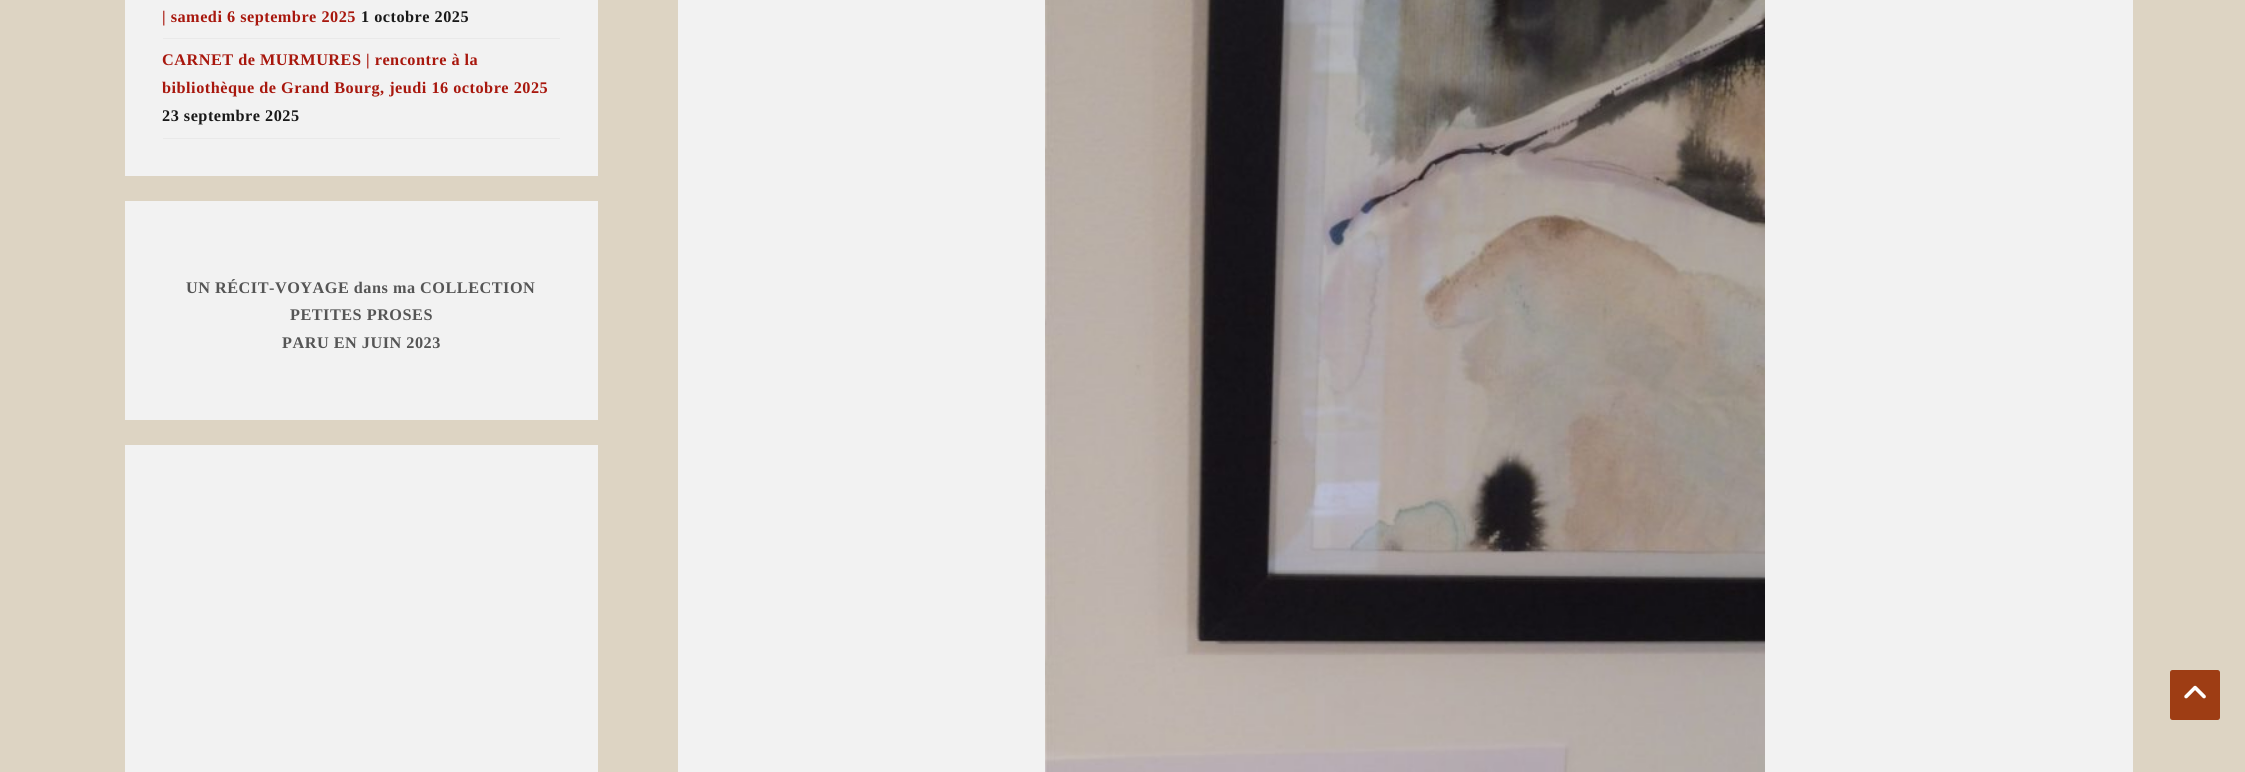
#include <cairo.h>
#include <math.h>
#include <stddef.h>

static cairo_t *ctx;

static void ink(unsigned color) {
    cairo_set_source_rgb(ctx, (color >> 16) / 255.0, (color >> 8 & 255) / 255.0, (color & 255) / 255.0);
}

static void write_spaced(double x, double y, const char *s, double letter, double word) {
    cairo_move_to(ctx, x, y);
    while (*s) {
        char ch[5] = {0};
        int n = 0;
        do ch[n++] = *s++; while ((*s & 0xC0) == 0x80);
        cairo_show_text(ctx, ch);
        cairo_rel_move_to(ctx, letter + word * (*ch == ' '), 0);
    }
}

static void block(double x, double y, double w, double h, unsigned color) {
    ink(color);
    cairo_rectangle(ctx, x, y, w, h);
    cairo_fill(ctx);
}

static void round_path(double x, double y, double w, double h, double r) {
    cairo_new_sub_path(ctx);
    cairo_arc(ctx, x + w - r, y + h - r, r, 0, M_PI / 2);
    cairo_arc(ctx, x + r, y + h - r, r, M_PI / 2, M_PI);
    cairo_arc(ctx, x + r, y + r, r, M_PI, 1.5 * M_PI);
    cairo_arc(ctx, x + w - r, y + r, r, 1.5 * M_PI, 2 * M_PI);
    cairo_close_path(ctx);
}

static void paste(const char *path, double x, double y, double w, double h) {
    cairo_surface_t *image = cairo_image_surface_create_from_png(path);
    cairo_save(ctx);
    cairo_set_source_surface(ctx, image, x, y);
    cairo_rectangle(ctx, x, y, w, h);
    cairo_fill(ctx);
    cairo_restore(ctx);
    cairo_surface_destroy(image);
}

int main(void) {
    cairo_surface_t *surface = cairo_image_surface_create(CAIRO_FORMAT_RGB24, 2245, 772);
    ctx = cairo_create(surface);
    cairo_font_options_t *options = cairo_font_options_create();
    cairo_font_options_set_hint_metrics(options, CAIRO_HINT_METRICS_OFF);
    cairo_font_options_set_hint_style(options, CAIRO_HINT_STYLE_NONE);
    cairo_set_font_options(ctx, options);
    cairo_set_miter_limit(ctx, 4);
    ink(0xddd4c3);
    cairo_paint(ctx);
    block(125, 0, 473, 176, 0xf2f2f2);
    block(163, 38, 397, 1, 0xe9e9e9);
    cairo_select_font_face(ctx, "Liberation Serif", CAIRO_FONT_SLANT_NORMAL, CAIRO_FONT_WEIGHT_BOLD);
    cairo_set_font_size(ctx, 16.25);
    ink(0xa8170d);
    write_spaced(162, 22, "| samedi 6 septembre 2025", 0.5, 0);
    ink(0x191919);
    write_spaced(361, 22, "1 octobre 2025", 0.5, 0);
    block(163, 138, 397, 1, 0xe9e9e9);
    ink(0xa8170d);
    write_spaced(162, 65, "CARNET de MURMURES | rencontre à la", 0.5, 0);
    write_spaced(162, 93, "bibliothèque de Grand Bourg, jeudi 16 octobre 2025", 0.5, 0);
    ink(0x191919);
    write_spaced(162, 121, "23 septembre 2025", 0.5, 0);
    block(125, 201, 473, 219, 0xf2f2f2);
    ink(0x555555);
    write_spaced(186, 293, "UN RÉCIT-VOYAGE dans ma COLLECTION", 0.5, 0);
    write_spaced(290, 320, "PETITES PROSES", 0.5, 0);
    write_spaced(282, 348, "PARU EN JUIN 2023", 0.5, 0);
    block(125, 445, 473, 327, 0xf2f2f2);
    block(678, 0, 1455, 772, 0xf2f2f2);
    paste("pic1.png", 1045, 0, 720, 772);
    ink(0x9e3d14);
    round_path(2170, 670, 50, 50, 2.5);
    cairo_fill(ctx);
    paste("pic2.png", 2184, 685, 22, 14);
    cairo_surface_write_to_png(surface, "screenshot.png");
    cairo_font_options_destroy(options);
    cairo_destroy(ctx);
    cairo_surface_destroy(surface);
    return 0;
}
